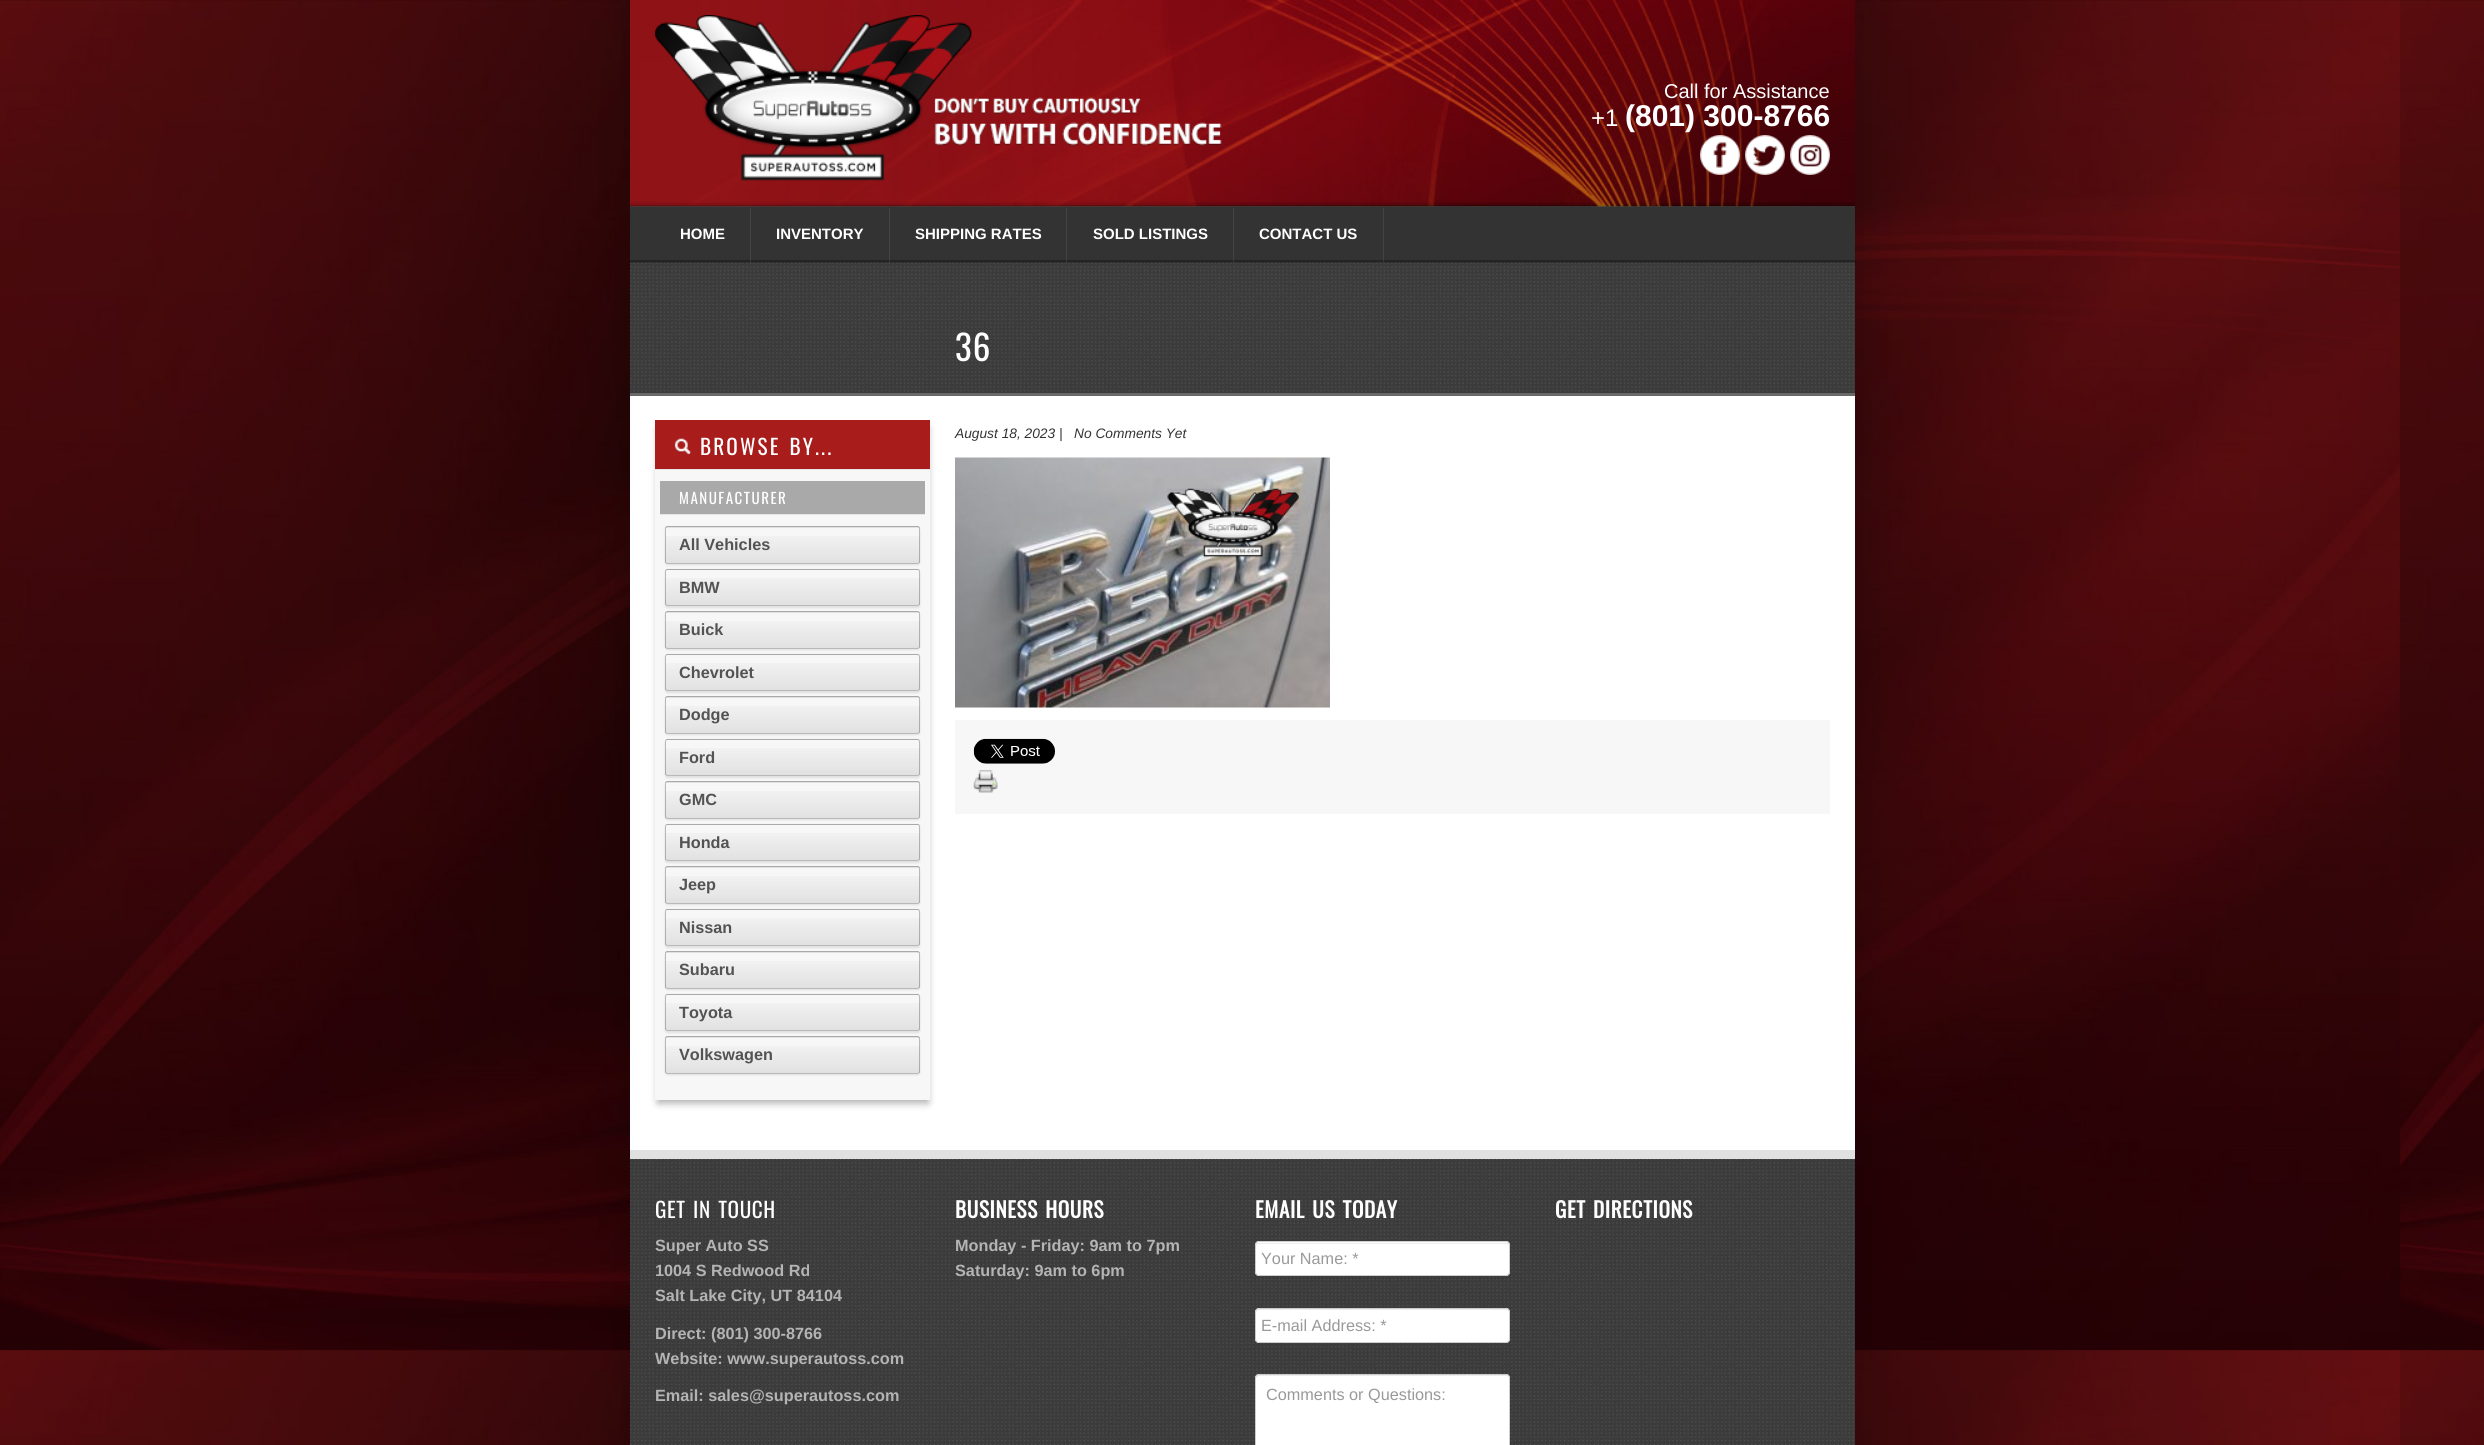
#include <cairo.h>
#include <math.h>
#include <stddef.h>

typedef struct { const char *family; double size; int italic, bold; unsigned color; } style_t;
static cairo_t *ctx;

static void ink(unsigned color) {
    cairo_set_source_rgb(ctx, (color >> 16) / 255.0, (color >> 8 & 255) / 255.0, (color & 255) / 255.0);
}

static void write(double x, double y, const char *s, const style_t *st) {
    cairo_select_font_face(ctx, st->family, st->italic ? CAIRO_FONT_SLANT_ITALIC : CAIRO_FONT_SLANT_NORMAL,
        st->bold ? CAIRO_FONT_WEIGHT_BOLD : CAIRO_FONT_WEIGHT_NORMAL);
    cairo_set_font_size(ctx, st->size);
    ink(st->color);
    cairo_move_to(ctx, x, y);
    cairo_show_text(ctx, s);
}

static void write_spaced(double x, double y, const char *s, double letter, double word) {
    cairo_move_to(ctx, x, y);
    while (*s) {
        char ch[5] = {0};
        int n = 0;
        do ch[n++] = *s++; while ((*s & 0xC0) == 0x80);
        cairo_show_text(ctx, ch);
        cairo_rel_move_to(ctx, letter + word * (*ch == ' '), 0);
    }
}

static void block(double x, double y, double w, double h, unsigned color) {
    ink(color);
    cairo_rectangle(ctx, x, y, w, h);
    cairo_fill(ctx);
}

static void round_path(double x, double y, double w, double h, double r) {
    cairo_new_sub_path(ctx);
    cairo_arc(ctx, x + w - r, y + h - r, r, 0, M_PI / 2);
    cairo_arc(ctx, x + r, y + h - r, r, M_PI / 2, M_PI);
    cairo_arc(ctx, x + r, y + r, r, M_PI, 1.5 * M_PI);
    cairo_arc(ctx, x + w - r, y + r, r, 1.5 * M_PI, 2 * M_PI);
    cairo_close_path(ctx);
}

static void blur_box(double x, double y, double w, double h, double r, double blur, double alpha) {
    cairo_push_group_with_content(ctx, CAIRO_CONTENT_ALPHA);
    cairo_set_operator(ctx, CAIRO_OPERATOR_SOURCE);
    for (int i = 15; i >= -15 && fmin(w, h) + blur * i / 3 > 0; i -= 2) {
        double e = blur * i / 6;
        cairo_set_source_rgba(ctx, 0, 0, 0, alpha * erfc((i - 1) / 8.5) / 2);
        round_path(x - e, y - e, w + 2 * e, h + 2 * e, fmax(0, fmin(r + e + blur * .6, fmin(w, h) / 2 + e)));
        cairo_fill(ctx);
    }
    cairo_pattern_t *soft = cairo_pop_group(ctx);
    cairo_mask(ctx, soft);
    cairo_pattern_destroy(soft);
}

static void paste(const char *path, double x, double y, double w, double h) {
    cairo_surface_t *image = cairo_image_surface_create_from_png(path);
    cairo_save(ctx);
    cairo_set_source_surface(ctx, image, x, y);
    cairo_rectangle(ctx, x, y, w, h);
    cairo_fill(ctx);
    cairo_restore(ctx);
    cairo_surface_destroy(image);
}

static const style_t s1 = {"Liberation Sans", 20, 0, 0, 0xffffff};
static const style_t s2 = {"Liberation Sans", 24, 0, 0, 0xffffff};
static const style_t s3 = {"Liberation Sans", 30, 0, 1, 0xffffff};
static const style_t s4 = {"Liberation Sans", 15, 0, 1, 0xffffff};
static const style_t s5 = {"Liberation Sans", 13.75, 1, 0, 0x333333};
static const style_t s6 = {"Liberation Sans", 16.25, 0, 1, 0x535353};
static const style_t s7 = {"Liberation Sans", 16.25, 0, 1, 0xb4b4b4};
static const style_t s8 = {"Liberation Sans", 16.25, 0, 0, 0x999999};

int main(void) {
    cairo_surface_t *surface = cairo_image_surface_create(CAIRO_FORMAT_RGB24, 2484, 1445);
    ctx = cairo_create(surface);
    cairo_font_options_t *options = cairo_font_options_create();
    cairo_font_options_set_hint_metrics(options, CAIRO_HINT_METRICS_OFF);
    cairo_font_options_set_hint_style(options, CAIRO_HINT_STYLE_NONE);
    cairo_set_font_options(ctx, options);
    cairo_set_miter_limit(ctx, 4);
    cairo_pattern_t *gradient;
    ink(0xffffff);
    cairo_paint(ctx);
    paste("pic1.png", 0, 0, 2484, 1445);
    ink(0x000000);
    blur_box(643, 0, 1200, 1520, 0, 25, 0.3);
    block(630, 206, 1225, 1, 0x434343);
    paste("pic2.png", 630, 0, 1225, 207);
    paste("pic3.png", 655, 15, 567, 166);
    write(1664, 98, "Call for Assistance", &s1);
    write(1591, 126, "+1", &s2);
    write(1625, 126, "(801) 300-8766", &s3);
    paste("pic4.png", 1700, 135, 40, 40);
    paste("pic5.png", 1745, 135, 40, 40);
    paste("pic6.png", 1790, 135, 40, 40);
    block(630, 207, 1225, 53, 0x333333);
    block(630, 260, 1225, 3, 0x242424);
    cairo_set_source_rgba(ctx, 1, 1, 1, 0.08);
    cairo_rectangle(ctx, 750, 208, 1, 55);
    cairo_fill(ctx);
    write(680, 239, "HOME", &s4);
    cairo_set_source_rgba(ctx, 1, 1, 1, 0.08);
    cairo_rectangle(ctx, 889, 208, 1, 55);
    cairo_fill(ctx);
    write(776, 239, "INVENTORY", &s4);
    cairo_set_source_rgba(ctx, 1, 1, 1, 0.08);
    cairo_rectangle(ctx, 1066, 208, 1, 55);
    cairo_fill(ctx);
    write(915, 239, "SHIPPING RATES", &s4);
    cairo_set_source_rgba(ctx, 1, 1, 1, 0.08);
    cairo_rectangle(ctx, 1233, 208, 1, 55);
    cairo_fill(ctx);
    write(1093, 239, "SOLD LISTINGS", &s4);
    cairo_set_source_rgba(ctx, 1, 1, 1, 0.08);
    cairo_rectangle(ctx, 1383, 208, 1, 55);
    cairo_fill(ctx);
    write(1259, 239, "CONTACT US", &s4);
    paste("pic7.png", 630, 262, 1225, 131);
    block(630, 393, 1225, 3, 0x696969);
    cairo_select_font_face(ctx, "Oswald", CAIRO_FONT_SLANT_NORMAL, CAIRO_FONT_WEIGHT_NORMAL);
    cairo_set_font_size(ctx, 35);
    ink(0xffffff);
    write_spaced(955, 361, "36", 1, 0);
    block(630, 396, 1225, 754, 0xffffff);
    write(955, 438, "August 18, 2023 |   No Comments Yet", &s5);
    paste("pic8.png", 955, 457, 375, 251);
    block(955, 720, 875, 94, 0xf7f7f7);
    paste("pic9.png", 973, 738, 82, 26);
    paste("pic10.png", 973, 770, 25, 23);
    ink(0x000000);
    blur_box(658, 428, 270, 675, 0, 4, 0.33);
    block(655, 420, 275, 49, 0xa81c1c);
    paste("pic11.png", 674, 438, 18, 17);
    cairo_select_font_face(ctx, "Oswald", CAIRO_FONT_SLANT_NORMAL, CAIRO_FONT_WEIGHT_NORMAL);
    cairo_set_font_size(ctx, 21.25);
    ink(0xffffff);
    write_spaced(700, 455, "BROWSE BY...", 2.1, 2);
    block(655, 470, 275, 630, 0xf7f7f7);
    block(655, 469, 275, 1, 0xe5e5e5);
    block(660, 481, 265, 33, 0xa9a9a9);
    cairo_set_font_size(ctx, 15);
    ink(0xffffff);
    write_spaced(679, 504, "MANUFACTURER", 1.5, 0);
    block(660, 514, 265, 1, 0xe5e5e5);
    cairo_save(ctx);
    cairo_set_fill_rule(ctx, CAIRO_FILL_RULE_EVEN_ODD);
    cairo_new_path(ctx);
    cairo_move_to(ctx, 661, 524);
    cairo_line_to(ctx, 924, 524);
    cairo_line_to(ctx, 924, 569);
    cairo_line_to(ctx, 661, 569);
    cairo_close_path(ctx);
    cairo_move_to(ctx, 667.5, 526);
    cairo_line_to(ctx, 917.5, 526);
    cairo_curve_to(ctx, 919, 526, 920, 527, 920, 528.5);
    cairo_line_to(ctx, 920, 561.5);
    cairo_curve_to(ctx, 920, 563, 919, 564, 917.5, 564);
    cairo_line_to(ctx, 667.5, 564);
    cairo_curve_to(ctx, 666, 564, 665, 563, 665, 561.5);
    cairo_line_to(ctx, 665, 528.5);
    cairo_curve_to(ctx, 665, 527, 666, 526, 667.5, 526);
    cairo_close_path(ctx);
    cairo_clip(ctx);
    ink(0x000000);
    blur_box(665, 528, 255, 37, 2.5, 1, 0.1);
    cairo_restore(ctx);
    cairo_save(ctx);
    round_path(665, 526, 255, 38, 2.5);
    cairo_clip(ctx);
    gradient = cairo_pattern_create_linear(793, 493, 793, 528);
    cairo_pattern_add_color_stop_rgba(gradient, 0, 0.969, 0.969, 0.969, 1);
    cairo_pattern_add_color_stop_rgba(gradient, 1, 0.882, 0.882, 0.882, 1);
    cairo_set_source(ctx, gradient);
    cairo_pattern_destroy(gradient);
    cairo_rectangle(ctx, 665, 526, 255, 2);
    cairo_fill(ctx);
    cairo_restore(ctx);
    gradient = cairo_pattern_create_linear(793, 528, 793, 563);
    cairo_pattern_add_color_stop_rgba(gradient, 0, 0, 0, 0, 0);
    cairo_pattern_add_color_stop_rgba(gradient, 1, 0, 0, 0, 0.09);
    cairo_set_source(ctx, gradient);
    cairo_pattern_destroy(gradient);
    cairo_rectangle(ctx, 665, 536, 255, 27);
    cairo_fill(ctx);
    round_path(665.5, 526.5, 254, 37, 2);
    cairo_set_source_rgba(ctx, 0, 0, 0, 0.25);
    cairo_set_line_width(ctx, 1);
    cairo_stroke(ctx);
    write(679, 550, "All Vehicles", &s6);
    cairo_save(ctx);
    cairo_set_fill_rule(ctx, CAIRO_FILL_RULE_EVEN_ODD);
    cairo_new_path(ctx);
    cairo_move_to(ctx, 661, 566);
    cairo_line_to(ctx, 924, 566);
    cairo_line_to(ctx, 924, 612);
    cairo_line_to(ctx, 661, 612);
    cairo_close_path(ctx);
    cairo_move_to(ctx, 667.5, 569);
    cairo_line_to(ctx, 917.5, 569);
    cairo_curve_to(ctx, 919, 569, 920, 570, 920, 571.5);
    cairo_line_to(ctx, 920, 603.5);
    cairo_curve_to(ctx, 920, 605, 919, 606, 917.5, 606);
    cairo_line_to(ctx, 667.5, 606);
    cairo_curve_to(ctx, 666, 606, 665, 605, 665, 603.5);
    cairo_line_to(ctx, 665, 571.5);
    cairo_curve_to(ctx, 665, 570, 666, 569, 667.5, 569);
    cairo_close_path(ctx);
    cairo_clip(ctx);
    ink(0x000000);
    blur_box(665, 570, 255, 38, 2.5, 1, 0.1);
    cairo_restore(ctx);
    cairo_save(ctx);
    round_path(665, 569, 255, 37, 2.5);
    cairo_clip(ctx);
    gradient = cairo_pattern_create_linear(793, 535, 793, 570);
    cairo_pattern_add_color_stop_rgba(gradient, 0, 0.969, 0.969, 0.969, 1);
    cairo_pattern_add_color_stop_rgba(gradient, 1, 0.882, 0.882, 0.882, 1);
    cairo_set_source(ctx, gradient);
    cairo_pattern_destroy(gradient);
    cairo_rectangle(ctx, 665, 569, 255, 1);
    cairo_fill(ctx);
    cairo_restore(ctx);
    gradient = cairo_pattern_create_linear(793, 570, 793, 605);
    cairo_pattern_add_color_stop_rgba(gradient, 0, 0, 0, 0, 0);
    cairo_pattern_add_color_stop_rgba(gradient, 1, 0, 0, 0, 0.09);
    cairo_set_source(ctx, gradient);
    cairo_pattern_destroy(gradient);
    cairo_rectangle(ctx, 665, 578, 255, 27);
    cairo_fill(ctx);
    round_path(665.5, 569.5, 254, 36, 2);
    cairo_set_source_rgba(ctx, 0, 0, 0, 0.25);
    cairo_stroke(ctx);
    write(679, 593, "BMW", &s6);
    cairo_save(ctx);
    cairo_set_fill_rule(ctx, CAIRO_FILL_RULE_EVEN_ODD);
    cairo_new_path(ctx);
    cairo_move_to(ctx, 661, 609);
    cairo_line_to(ctx, 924, 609);
    cairo_line_to(ctx, 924, 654);
    cairo_line_to(ctx, 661, 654);
    cairo_close_path(ctx);
    cairo_move_to(ctx, 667.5, 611);
    cairo_line_to(ctx, 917.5, 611);
    cairo_curve_to(ctx, 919, 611, 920, 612, 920, 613.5);
    cairo_line_to(ctx, 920, 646.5);
    cairo_curve_to(ctx, 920, 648, 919, 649, 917.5, 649);
    cairo_line_to(ctx, 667.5, 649);
    cairo_curve_to(ctx, 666, 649, 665, 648, 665, 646.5);
    cairo_line_to(ctx, 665, 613.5);
    cairo_curve_to(ctx, 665, 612, 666, 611, 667.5, 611);
    cairo_close_path(ctx);
    cairo_clip(ctx);
    ink(0x000000);
    blur_box(665, 613, 255, 37, 2.5, 1, 0.1);
    cairo_restore(ctx);
    cairo_save(ctx);
    round_path(665, 611, 255, 38, 2.5);
    cairo_clip(ctx);
    gradient = cairo_pattern_create_linear(793, 578, 793, 613);
    cairo_pattern_add_color_stop_rgba(gradient, 0, 0.969, 0.969, 0.969, 1);
    cairo_pattern_add_color_stop_rgba(gradient, 1, 0.882, 0.882, 0.882, 1);
    cairo_set_source(ctx, gradient);
    cairo_pattern_destroy(gradient);
    cairo_rectangle(ctx, 665, 611, 255, 2);
    cairo_fill(ctx);
    cairo_restore(ctx);
    gradient = cairo_pattern_create_linear(793, 613, 793, 648);
    cairo_pattern_add_color_stop_rgba(gradient, 0, 0, 0, 0, 0);
    cairo_pattern_add_color_stop_rgba(gradient, 1, 0, 0, 0, 0.09);
    cairo_set_source(ctx, gradient);
    cairo_pattern_destroy(gradient);
    cairo_rectangle(ctx, 665, 621, 255, 27);
    cairo_fill(ctx);
    round_path(665.5, 611.5, 254, 37, 2);
    cairo_set_source_rgba(ctx, 0, 0, 0, 0.25);
    cairo_stroke(ctx);
    write(679, 635, "Buick", &s6);
    cairo_save(ctx);
    cairo_set_fill_rule(ctx, CAIRO_FILL_RULE_EVEN_ODD);
    cairo_new_path(ctx);
    cairo_move_to(ctx, 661, 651);
    cairo_line_to(ctx, 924, 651);
    cairo_line_to(ctx, 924, 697);
    cairo_line_to(ctx, 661, 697);
    cairo_close_path(ctx);
    cairo_move_to(ctx, 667.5, 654);
    cairo_line_to(ctx, 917.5, 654);
    cairo_curve_to(ctx, 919, 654, 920, 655, 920, 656.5);
    cairo_line_to(ctx, 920, 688.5);
    cairo_curve_to(ctx, 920, 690, 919, 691, 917.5, 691);
    cairo_line_to(ctx, 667.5, 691);
    cairo_curve_to(ctx, 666, 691, 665, 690, 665, 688.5);
    cairo_line_to(ctx, 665, 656.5);
    cairo_curve_to(ctx, 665, 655, 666, 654, 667.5, 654);
    cairo_close_path(ctx);
    cairo_clip(ctx);
    ink(0x000000);
    blur_box(665, 655, 255, 38, 2.5, 1, 0.1);
    cairo_restore(ctx);
    cairo_save(ctx);
    round_path(665, 654, 255, 37, 2.5);
    cairo_clip(ctx);
    gradient = cairo_pattern_create_linear(793, 620, 793, 655);
    cairo_pattern_add_color_stop_rgba(gradient, 0, 0.969, 0.969, 0.969, 1);
    cairo_pattern_add_color_stop_rgba(gradient, 1, 0.882, 0.882, 0.882, 1);
    cairo_set_source(ctx, gradient);
    cairo_pattern_destroy(gradient);
    cairo_rectangle(ctx, 665, 654, 255, 1);
    cairo_fill(ctx);
    cairo_restore(ctx);
    gradient = cairo_pattern_create_linear(793, 655, 793, 690);
    cairo_pattern_add_color_stop_rgba(gradient, 0, 0, 0, 0, 0);
    cairo_pattern_add_color_stop_rgba(gradient, 1, 0, 0, 0, 0.09);
    cairo_set_source(ctx, gradient);
    cairo_pattern_destroy(gradient);
    cairo_rectangle(ctx, 665, 663, 255, 27);
    cairo_fill(ctx);
    round_path(665.5, 654.5, 254, 36, 2);
    cairo_set_source_rgba(ctx, 0, 0, 0, 0.25);
    cairo_stroke(ctx);
    write(679, 678, "Chevrolet", &s6);
    cairo_save(ctx);
    cairo_set_fill_rule(ctx, CAIRO_FILL_RULE_EVEN_ODD);
    cairo_new_path(ctx);
    cairo_move_to(ctx, 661, 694);
    cairo_line_to(ctx, 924, 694);
    cairo_line_to(ctx, 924, 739);
    cairo_line_to(ctx, 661, 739);
    cairo_close_path(ctx);
    cairo_move_to(ctx, 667.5, 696);
    cairo_line_to(ctx, 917.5, 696);
    cairo_curve_to(ctx, 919, 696, 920, 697, 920, 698.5);
    cairo_line_to(ctx, 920, 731.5);
    cairo_curve_to(ctx, 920, 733, 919, 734, 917.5, 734);
    cairo_line_to(ctx, 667.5, 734);
    cairo_curve_to(ctx, 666, 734, 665, 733, 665, 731.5);
    cairo_line_to(ctx, 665, 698.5);
    cairo_curve_to(ctx, 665, 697, 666, 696, 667.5, 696);
    cairo_close_path(ctx);
    cairo_clip(ctx);
    ink(0x000000);
    blur_box(665, 698, 255, 37, 2.5, 1, 0.1);
    cairo_restore(ctx);
    cairo_save(ctx);
    round_path(665, 696, 255, 38, 2.5);
    cairo_clip(ctx);
    gradient = cairo_pattern_create_linear(793, 663, 793, 698);
    cairo_pattern_add_color_stop_rgba(gradient, 0, 0.969, 0.969, 0.969, 1);
    cairo_pattern_add_color_stop_rgba(gradient, 1, 0.882, 0.882, 0.882, 1);
    cairo_set_source(ctx, gradient);
    cairo_pattern_destroy(gradient);
    cairo_rectangle(ctx, 665, 696, 255, 2);
    cairo_fill(ctx);
    cairo_restore(ctx);
    gradient = cairo_pattern_create_linear(793, 698, 793, 733);
    cairo_pattern_add_color_stop_rgba(gradient, 0, 0, 0, 0, 0);
    cairo_pattern_add_color_stop_rgba(gradient, 1, 0, 0, 0, 0.09);
    cairo_set_source(ctx, gradient);
    cairo_pattern_destroy(gradient);
    cairo_rectangle(ctx, 665, 706, 255, 27);
    cairo_fill(ctx);
    round_path(665.5, 696.5, 254, 37, 2);
    cairo_set_source_rgba(ctx, 0, 0, 0, 0.25);
    cairo_stroke(ctx);
    write(679, 720, "Dodge", &s6);
    cairo_save(ctx);
    cairo_set_fill_rule(ctx, CAIRO_FILL_RULE_EVEN_ODD);
    cairo_new_path(ctx);
    cairo_move_to(ctx, 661, 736);
    cairo_line_to(ctx, 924, 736);
    cairo_line_to(ctx, 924, 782);
    cairo_line_to(ctx, 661, 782);
    cairo_close_path(ctx);
    cairo_move_to(ctx, 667.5, 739);
    cairo_line_to(ctx, 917.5, 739);
    cairo_curve_to(ctx, 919, 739, 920, 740, 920, 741.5);
    cairo_line_to(ctx, 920, 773.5);
    cairo_curve_to(ctx, 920, 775, 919, 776, 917.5, 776);
    cairo_line_to(ctx, 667.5, 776);
    cairo_curve_to(ctx, 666, 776, 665, 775, 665, 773.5);
    cairo_line_to(ctx, 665, 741.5);
    cairo_curve_to(ctx, 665, 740, 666, 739, 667.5, 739);
    cairo_close_path(ctx);
    cairo_clip(ctx);
    ink(0x000000);
    blur_box(665, 740, 255, 38, 2.5, 1, 0.1);
    cairo_restore(ctx);
    cairo_save(ctx);
    round_path(665, 739, 255, 37, 2.5);
    cairo_clip(ctx);
    gradient = cairo_pattern_create_linear(793, 705, 793, 740);
    cairo_pattern_add_color_stop_rgba(gradient, 0, 0.969, 0.969, 0.969, 1);
    cairo_pattern_add_color_stop_rgba(gradient, 1, 0.882, 0.882, 0.882, 1);
    cairo_set_source(ctx, gradient);
    cairo_pattern_destroy(gradient);
    cairo_rectangle(ctx, 665, 739, 255, 1);
    cairo_fill(ctx);
    cairo_restore(ctx);
    gradient = cairo_pattern_create_linear(793, 740, 793, 775);
    cairo_pattern_add_color_stop_rgba(gradient, 0, 0, 0, 0, 0);
    cairo_pattern_add_color_stop_rgba(gradient, 1, 0, 0, 0, 0.09);
    cairo_set_source(ctx, gradient);
    cairo_pattern_destroy(gradient);
    cairo_rectangle(ctx, 665, 748, 255, 27);
    cairo_fill(ctx);
    round_path(665.5, 739.5, 254, 36, 2);
    cairo_set_source_rgba(ctx, 0, 0, 0, 0.25);
    cairo_stroke(ctx);
    write(679, 763, "Ford", &s6);
    cairo_save(ctx);
    cairo_set_fill_rule(ctx, CAIRO_FILL_RULE_EVEN_ODD);
    cairo_new_path(ctx);
    cairo_move_to(ctx, 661, 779);
    cairo_line_to(ctx, 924, 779);
    cairo_line_to(ctx, 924, 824);
    cairo_line_to(ctx, 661, 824);
    cairo_close_path(ctx);
    cairo_move_to(ctx, 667.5, 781);
    cairo_line_to(ctx, 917.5, 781);
    cairo_curve_to(ctx, 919, 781, 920, 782, 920, 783.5);
    cairo_line_to(ctx, 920, 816.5);
    cairo_curve_to(ctx, 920, 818, 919, 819, 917.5, 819);
    cairo_line_to(ctx, 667.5, 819);
    cairo_curve_to(ctx, 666, 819, 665, 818, 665, 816.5);
    cairo_line_to(ctx, 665, 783.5);
    cairo_curve_to(ctx, 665, 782, 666, 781, 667.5, 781);
    cairo_close_path(ctx);
    cairo_clip(ctx);
    ink(0x000000);
    blur_box(665, 783, 255, 37, 2.5, 1, 0.1);
    cairo_restore(ctx);
    cairo_save(ctx);
    round_path(665, 781, 255, 38, 2.5);
    cairo_clip(ctx);
    gradient = cairo_pattern_create_linear(793, 748, 793, 783);
    cairo_pattern_add_color_stop_rgba(gradient, 0, 0.969, 0.969, 0.969, 1);
    cairo_pattern_add_color_stop_rgba(gradient, 1, 0.882, 0.882, 0.882, 1);
    cairo_set_source(ctx, gradient);
    cairo_pattern_destroy(gradient);
    cairo_rectangle(ctx, 665, 781, 255, 2);
    cairo_fill(ctx);
    cairo_restore(ctx);
    gradient = cairo_pattern_create_linear(793, 783, 793, 818);
    cairo_pattern_add_color_stop_rgba(gradient, 0, 0, 0, 0, 0);
    cairo_pattern_add_color_stop_rgba(gradient, 1, 0, 0, 0, 0.09);
    cairo_set_source(ctx, gradient);
    cairo_pattern_destroy(gradient);
    cairo_rectangle(ctx, 665, 791, 255, 27);
    cairo_fill(ctx);
    round_path(665.5, 781.5, 254, 37, 2);
    cairo_set_source_rgba(ctx, 0, 0, 0, 0.25);
    cairo_stroke(ctx);
    write(679, 805, "GMC", &s6);
    cairo_save(ctx);
    cairo_set_fill_rule(ctx, CAIRO_FILL_RULE_EVEN_ODD);
    cairo_new_path(ctx);
    cairo_move_to(ctx, 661, 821);
    cairo_line_to(ctx, 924, 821);
    cairo_line_to(ctx, 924, 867);
    cairo_line_to(ctx, 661, 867);
    cairo_close_path(ctx);
    cairo_move_to(ctx, 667.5, 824);
    cairo_line_to(ctx, 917.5, 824);
    cairo_curve_to(ctx, 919, 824, 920, 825, 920, 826.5);
    cairo_line_to(ctx, 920, 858.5);
    cairo_curve_to(ctx, 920, 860, 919, 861, 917.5, 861);
    cairo_line_to(ctx, 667.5, 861);
    cairo_curve_to(ctx, 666, 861, 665, 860, 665, 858.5);
    cairo_line_to(ctx, 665, 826.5);
    cairo_curve_to(ctx, 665, 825, 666, 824, 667.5, 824);
    cairo_close_path(ctx);
    cairo_clip(ctx);
    ink(0x000000);
    blur_box(665, 825, 255, 38, 2.5, 1, 0.1);
    cairo_restore(ctx);
    cairo_save(ctx);
    round_path(665, 824, 255, 37, 2.5);
    cairo_clip(ctx);
    gradient = cairo_pattern_create_linear(793, 790, 793, 825);
    cairo_pattern_add_color_stop_rgba(gradient, 0, 0.969, 0.969, 0.969, 1);
    cairo_pattern_add_color_stop_rgba(gradient, 1, 0.882, 0.882, 0.882, 1);
    cairo_set_source(ctx, gradient);
    cairo_pattern_destroy(gradient);
    cairo_rectangle(ctx, 665, 824, 255, 1);
    cairo_fill(ctx);
    cairo_restore(ctx);
    gradient = cairo_pattern_create_linear(793, 825, 793, 860);
    cairo_pattern_add_color_stop_rgba(gradient, 0, 0, 0, 0, 0);
    cairo_pattern_add_color_stop_rgba(gradient, 1, 0, 0, 0, 0.09);
    cairo_set_source(ctx, gradient);
    cairo_pattern_destroy(gradient);
    cairo_rectangle(ctx, 665, 833, 255, 27);
    cairo_fill(ctx);
    round_path(665.5, 824.5, 254, 36, 2);
    cairo_set_source_rgba(ctx, 0, 0, 0, 0.25);
    cairo_stroke(ctx);
    write(679, 848, "Honda", &s6);
    cairo_save(ctx);
    cairo_set_fill_rule(ctx, CAIRO_FILL_RULE_EVEN_ODD);
    cairo_new_path(ctx);
    cairo_move_to(ctx, 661, 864);
    cairo_line_to(ctx, 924, 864);
    cairo_line_to(ctx, 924, 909);
    cairo_line_to(ctx, 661, 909);
    cairo_close_path(ctx);
    cairo_move_to(ctx, 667.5, 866);
    cairo_line_to(ctx, 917.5, 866);
    cairo_curve_to(ctx, 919, 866, 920, 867, 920, 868.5);
    cairo_line_to(ctx, 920, 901.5);
    cairo_curve_to(ctx, 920, 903, 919, 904, 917.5, 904);
    cairo_line_to(ctx, 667.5, 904);
    cairo_curve_to(ctx, 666, 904, 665, 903, 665, 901.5);
    cairo_line_to(ctx, 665, 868.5);
    cairo_curve_to(ctx, 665, 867, 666, 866, 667.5, 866);
    cairo_close_path(ctx);
    cairo_clip(ctx);
    ink(0x000000);
    blur_box(665, 868, 255, 37, 2.5, 1, 0.1);
    cairo_restore(ctx);
    cairo_save(ctx);
    round_path(665, 866, 255, 38, 2.5);
    cairo_clip(ctx);
    gradient = cairo_pattern_create_linear(793, 833, 793, 868);
    cairo_pattern_add_color_stop_rgba(gradient, 0, 0.969, 0.969, 0.969, 1);
    cairo_pattern_add_color_stop_rgba(gradient, 1, 0.882, 0.882, 0.882, 1);
    cairo_set_source(ctx, gradient);
    cairo_pattern_destroy(gradient);
    cairo_rectangle(ctx, 665, 866, 255, 2);
    cairo_fill(ctx);
    cairo_restore(ctx);
    gradient = cairo_pattern_create_linear(793, 868, 793, 903);
    cairo_pattern_add_color_stop_rgba(gradient, 0, 0, 0, 0, 0);
    cairo_pattern_add_color_stop_rgba(gradient, 1, 0, 0, 0, 0.09);
    cairo_set_source(ctx, gradient);
    cairo_pattern_destroy(gradient);
    cairo_rectangle(ctx, 665, 876, 255, 27);
    cairo_fill(ctx);
    round_path(665.5, 866.5, 254, 37, 2);
    cairo_set_source_rgba(ctx, 0, 0, 0, 0.25);
    cairo_stroke(ctx);
    write(679, 890, "Jeep", &s6);
    cairo_save(ctx);
    cairo_set_fill_rule(ctx, CAIRO_FILL_RULE_EVEN_ODD);
    cairo_new_path(ctx);
    cairo_move_to(ctx, 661, 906);
    cairo_line_to(ctx, 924, 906);
    cairo_line_to(ctx, 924, 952);
    cairo_line_to(ctx, 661, 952);
    cairo_close_path(ctx);
    cairo_move_to(ctx, 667.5, 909);
    cairo_line_to(ctx, 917.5, 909);
    cairo_curve_to(ctx, 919, 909, 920, 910, 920, 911.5);
    cairo_line_to(ctx, 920, 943.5);
    cairo_curve_to(ctx, 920, 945, 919, 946, 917.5, 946);
    cairo_line_to(ctx, 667.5, 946);
    cairo_curve_to(ctx, 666, 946, 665, 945, 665, 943.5);
    cairo_line_to(ctx, 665, 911.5);
    cairo_curve_to(ctx, 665, 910, 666, 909, 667.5, 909);
    cairo_close_path(ctx);
    cairo_clip(ctx);
    ink(0x000000);
    blur_box(665, 910, 255, 38, 2.5, 1, 0.1);
    cairo_restore(ctx);
    cairo_save(ctx);
    round_path(665, 909, 255, 37, 2.5);
    cairo_clip(ctx);
    gradient = cairo_pattern_create_linear(793, 875, 793, 910);
    cairo_pattern_add_color_stop_rgba(gradient, 0, 0.969, 0.969, 0.969, 1);
    cairo_pattern_add_color_stop_rgba(gradient, 1, 0.882, 0.882, 0.882, 1);
    cairo_set_source(ctx, gradient);
    cairo_pattern_destroy(gradient);
    cairo_rectangle(ctx, 665, 909, 255, 1);
    cairo_fill(ctx);
    cairo_restore(ctx);
    gradient = cairo_pattern_create_linear(793, 910, 793, 945);
    cairo_pattern_add_color_stop_rgba(gradient, 0, 0, 0, 0, 0);
    cairo_pattern_add_color_stop_rgba(gradient, 1, 0, 0, 0, 0.09);
    cairo_set_source(ctx, gradient);
    cairo_pattern_destroy(gradient);
    cairo_rectangle(ctx, 665, 918, 255, 27);
    cairo_fill(ctx);
    round_path(665.5, 909.5, 254, 36, 2);
    cairo_set_source_rgba(ctx, 0, 0, 0, 0.25);
    cairo_stroke(ctx);
    write(679, 933, "Nissan", &s6);
    cairo_save(ctx);
    cairo_set_fill_rule(ctx, CAIRO_FILL_RULE_EVEN_ODD);
    cairo_new_path(ctx);
    cairo_move_to(ctx, 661, 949);
    cairo_line_to(ctx, 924, 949);
    cairo_line_to(ctx, 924, 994);
    cairo_line_to(ctx, 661, 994);
    cairo_close_path(ctx);
    cairo_move_to(ctx, 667.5, 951);
    cairo_line_to(ctx, 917.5, 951);
    cairo_curve_to(ctx, 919, 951, 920, 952, 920, 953.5);
    cairo_line_to(ctx, 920, 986.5);
    cairo_curve_to(ctx, 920, 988, 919, 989, 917.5, 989);
    cairo_line_to(ctx, 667.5, 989);
    cairo_curve_to(ctx, 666, 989, 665, 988, 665, 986.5);
    cairo_line_to(ctx, 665, 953.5);
    cairo_curve_to(ctx, 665, 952, 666, 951, 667.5, 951);
    cairo_close_path(ctx);
    cairo_clip(ctx);
    ink(0x000000);
    blur_box(665, 953, 255, 37, 2.5, 1, 0.1);
    cairo_restore(ctx);
    cairo_save(ctx);
    round_path(665, 951, 255, 38, 2.5);
    cairo_clip(ctx);
    gradient = cairo_pattern_create_linear(793, 918, 793, 953);
    cairo_pattern_add_color_stop_rgba(gradient, 0, 0.969, 0.969, 0.969, 1);
    cairo_pattern_add_color_stop_rgba(gradient, 1, 0.882, 0.882, 0.882, 1);
    cairo_set_source(ctx, gradient);
    cairo_pattern_destroy(gradient);
    cairo_rectangle(ctx, 665, 951, 255, 2);
    cairo_fill(ctx);
    cairo_restore(ctx);
    gradient = cairo_pattern_create_linear(793, 953, 793, 988);
    cairo_pattern_add_color_stop_rgba(gradient, 0, 0, 0, 0, 0);
    cairo_pattern_add_color_stop_rgba(gradient, 1, 0, 0, 0, 0.09);
    cairo_set_source(ctx, gradient);
    cairo_pattern_destroy(gradient);
    cairo_rectangle(ctx, 665, 961, 255, 27);
    cairo_fill(ctx);
    round_path(665.5, 951.5, 254, 37, 2);
    cairo_set_source_rgba(ctx, 0, 0, 0, 0.25);
    cairo_stroke(ctx);
    write(679, 975, "Subaru", &s6);
    cairo_save(ctx);
    cairo_set_fill_rule(ctx, CAIRO_FILL_RULE_EVEN_ODD);
    cairo_new_path(ctx);
    cairo_move_to(ctx, 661, 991);
    cairo_line_to(ctx, 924, 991);
    cairo_line_to(ctx, 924, 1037);
    cairo_line_to(ctx, 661, 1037);
    cairo_close_path(ctx);
    cairo_move_to(ctx, 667.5, 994);
    cairo_line_to(ctx, 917.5, 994);
    cairo_curve_to(ctx, 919, 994, 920, 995, 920, 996.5);
    cairo_line_to(ctx, 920, 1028.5);
    cairo_curve_to(ctx, 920, 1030, 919, 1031, 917.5, 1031);
    cairo_line_to(ctx, 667.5, 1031);
    cairo_curve_to(ctx, 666, 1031, 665, 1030, 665, 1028.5);
    cairo_line_to(ctx, 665, 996.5);
    cairo_curve_to(ctx, 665, 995, 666, 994, 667.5, 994);
    cairo_close_path(ctx);
    cairo_clip(ctx);
    ink(0x000000);
    blur_box(665, 995, 255, 38, 2.5, 1, 0.1);
    cairo_restore(ctx);
    cairo_save(ctx);
    round_path(665, 994, 255, 37, 2.5);
    cairo_clip(ctx);
    gradient = cairo_pattern_create_linear(793, 960, 793, 995);
    cairo_pattern_add_color_stop_rgba(gradient, 0, 0.969, 0.969, 0.969, 1);
    cairo_pattern_add_color_stop_rgba(gradient, 1, 0.882, 0.882, 0.882, 1);
    cairo_set_source(ctx, gradient);
    cairo_pattern_destroy(gradient);
    cairo_rectangle(ctx, 665, 994, 255, 1);
    cairo_fill(ctx);
    cairo_restore(ctx);
    gradient = cairo_pattern_create_linear(793, 995, 793, 1030);
    cairo_pattern_add_color_stop_rgba(gradient, 0, 0, 0, 0, 0);
    cairo_pattern_add_color_stop_rgba(gradient, 1, 0, 0, 0, 0.09);
    cairo_set_source(ctx, gradient);
    cairo_pattern_destroy(gradient);
    cairo_rectangle(ctx, 665, 1003, 255, 27);
    cairo_fill(ctx);
    round_path(665.5, 994.5, 254, 36, 2);
    cairo_set_source_rgba(ctx, 0, 0, 0, 0.25);
    cairo_stroke(ctx);
    write(679, 1018, "Toyota", &s6);
    cairo_save(ctx);
    cairo_set_fill_rule(ctx, CAIRO_FILL_RULE_EVEN_ODD);
    cairo_new_path(ctx);
    cairo_move_to(ctx, 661, 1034);
    cairo_line_to(ctx, 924, 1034);
    cairo_line_to(ctx, 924, 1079);
    cairo_line_to(ctx, 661, 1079);
    cairo_close_path(ctx);
    cairo_move_to(ctx, 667.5, 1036);
    cairo_line_to(ctx, 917.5, 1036);
    cairo_curve_to(ctx, 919, 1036, 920, 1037, 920, 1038.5);
    cairo_line_to(ctx, 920, 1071.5);
    cairo_curve_to(ctx, 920, 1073, 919, 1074, 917.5, 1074);
    cairo_line_to(ctx, 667.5, 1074);
    cairo_curve_to(ctx, 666, 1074, 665, 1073, 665, 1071.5);
    cairo_line_to(ctx, 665, 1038.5);
    cairo_curve_to(ctx, 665, 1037, 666, 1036, 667.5, 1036);
    cairo_close_path(ctx);
    cairo_clip(ctx);
    ink(0x000000);
    blur_box(665, 1038, 255, 37, 2.5, 1, 0.1);
    cairo_restore(ctx);
    cairo_save(ctx);
    round_path(665, 1036, 255, 38, 2.5);
    cairo_clip(ctx);
    gradient = cairo_pattern_create_linear(793, 1003, 793, 1038);
    cairo_pattern_add_color_stop_rgba(gradient, 0, 0.969, 0.969, 0.969, 1);
    cairo_pattern_add_color_stop_rgba(gradient, 1, 0.882, 0.882, 0.882, 1);
    cairo_set_source(ctx, gradient);
    cairo_pattern_destroy(gradient);
    cairo_rectangle(ctx, 665, 1036, 255, 2);
    cairo_fill(ctx);
    cairo_restore(ctx);
    gradient = cairo_pattern_create_linear(793, 1038, 793, 1073);
    cairo_pattern_add_color_stop_rgba(gradient, 0, 0, 0, 0, 0);
    cairo_pattern_add_color_stop_rgba(gradient, 1, 0, 0, 0, 0.09);
    cairo_set_source(ctx, gradient);
    cairo_pattern_destroy(gradient);
    cairo_rectangle(ctx, 665, 1046, 255, 27);
    cairo_fill(ctx);
    round_path(665.5, 1036.5, 254, 37, 2);
    cairo_set_source_rgba(ctx, 0, 0, 0, 0.25);
    cairo_stroke(ctx);
    write(679, 1060, "Volkswagen", &s6);
    paste("pic12.png", 630, 1159, 1225, 286);
    block(630, 1150, 1225, 9, 0xe0e0e0);
    cairo_select_font_face(ctx, "Oswald", CAIRO_FONT_SLANT_NORMAL, CAIRO_FONT_WEIGHT_NORMAL);
    cairo_set_font_size(ctx, 21.25);
    ink(0xffffff);
    write_spaced(655, 1218, "GET IN TOUCH", 0.6, 2);
    write(655, 1251, "Super Auto SS", &s7);
    write(655, 1276, "1004 S Redwood Rd", &s7);
    write(655, 1301, "Salt Lake City, UT 84104", &s7);
    write(655, 1339, "Direct: (801) 300-8766", &s7);
    write(655, 1364, "Website: www.superautoss.com", &s7);
    write(655, 1401, "Email: sales@superautoss.com", &s7);
    cairo_select_font_face(ctx, "Oswald", CAIRO_FONT_SLANT_NORMAL, CAIRO_FONT_WEIGHT_BOLD);
    cairo_set_font_size(ctx, 21.25);
    ink(0xffffff);
    write_spaced(955, 1218, "BUSINESS HOURS", 0.6, 2);
    write(955, 1251, "Monday - Friday: 9am to 7pm", &s7);
    write(955, 1276, "Saturday: 9am to 6pm", &s7);
    cairo_select_font_face(ctx, "Oswald", CAIRO_FONT_SLANT_NORMAL, CAIRO_FONT_WEIGHT_BOLD);
    cairo_set_font_size(ctx, 21.25);
    ink(0xffffff);
    write_spaced(1255, 1218, "EMAIL US TODAY", 0.6, 2);
    round_path(1255, 1241, 255, 35, 4);
    cairo_fill(ctx);
    ink(0xececec);
    cairo_new_path(ctx);
    cairo_move_to(ctx, 1259, 1244);
    cairo_line_to(ctx, 1506, 1244);
    cairo_curve_to(ctx, 1508, 1244, 1509, 1245, 1509, 1246);
    cairo_curve_to(ctx, 1509, 1244, 1508, 1243, 1506, 1243);
    cairo_line_to(ctx, 1258, 1243);
    cairo_line_to(ctx, 1256, 1244);
    cairo_line_to(ctx, 1256, 1246);
    cairo_curve_to(ctx, 1256, 1245, 1257, 1244, 1259, 1244);
    cairo_close_path(ctx);
    cairo_fill(ctx);
    round_path(1255.5, 1241.5, 254, 34, 3.5);
    ink(0xcccccc);
    cairo_stroke(ctx);
    write(1261, 1264, "Your Name: *", &s8);
    ink(0xffffff);
    round_path(1255, 1308, 255, 35, 4);
    cairo_fill(ctx);
    ink(0xececec);
    cairo_new_path(ctx);
    cairo_move_to(ctx, 1259, 1310);
    cairo_line_to(ctx, 1506, 1310);
    cairo_curve_to(ctx, 1508, 1310, 1509, 1311, 1509, 1312);
    cairo_curve_to(ctx, 1509, 1310, 1508, 1309, 1506, 1309);
    cairo_line_to(ctx, 1258, 1309);
    cairo_line_to(ctx, 1256, 1310);
    cairo_line_to(ctx, 1256, 1312);
    cairo_curve_to(ctx, 1256, 1311, 1257, 1310, 1259, 1310);
    cairo_close_path(ctx);
    cairo_fill(ctx);
    round_path(1255.5, 1308.5, 254, 34, 3.5);
    ink(0xcccccc);
    cairo_stroke(ctx);
    write(1261, 1331, "E-mail Address: *", &s8);
    ink(0xffffff);
    round_path(1255, 1374, 255, 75, 4);
    cairo_fill(ctx);
    ink(0xececec);
    cairo_new_path(ctx);
    cairo_move_to(ctx, 1259, 1376);
    cairo_line_to(ctx, 1507, 1376);
    cairo_line_to(ctx, 1509, 1377);
    cairo_line_to(ctx, 1509, 1379);
    cairo_line_to(ctx, 1509, 1378);
    cairo_curve_to(ctx, 1509, 1376, 1508, 1375, 1506, 1375);
    cairo_line_to(ctx, 1258, 1375);
    cairo_curve_to(ctx, 1257, 1375, 1256, 1376, 1256, 1378);
    cairo_line_to(ctx, 1256, 1379);
    cairo_curve_to(ctx, 1256, 1377, 1257, 1376, 1259, 1376);
    cairo_close_path(ctx);
    cairo_fill(ctx);
    round_path(1255.5, 1374.5, 254, 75, 3.5);
    ink(0xcccccc);
    cairo_stroke(ctx);
    write(1266, 1400, "Comments or Questions:", &s8);
    cairo_select_font_face(ctx, "Oswald", CAIRO_FONT_SLANT_NORMAL, CAIRO_FONT_WEIGHT_BOLD);
    cairo_set_font_size(ctx, 21.25);
    ink(0xffffff);
    write_spaced(1555, 1218, "GET DIRECTIONS", 0.6, 2);
    cairo_surface_write_to_png(surface, "screenshot.png");
    cairo_font_options_destroy(options);
    cairo_destroy(ctx);
    cairo_surface_destroy(surface);
    return 0;
}
